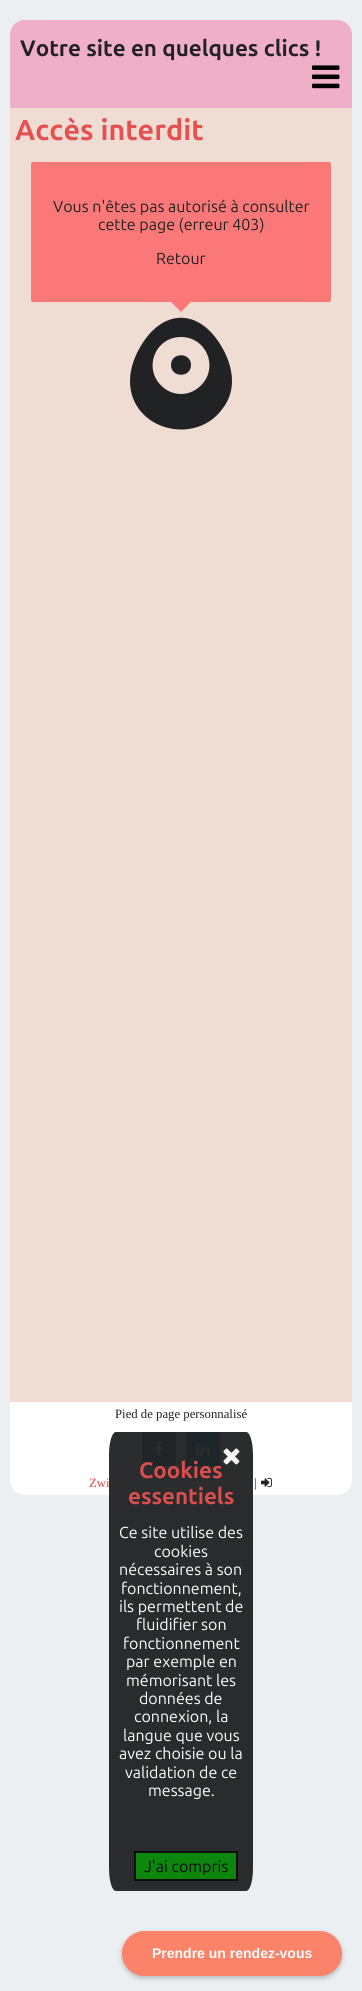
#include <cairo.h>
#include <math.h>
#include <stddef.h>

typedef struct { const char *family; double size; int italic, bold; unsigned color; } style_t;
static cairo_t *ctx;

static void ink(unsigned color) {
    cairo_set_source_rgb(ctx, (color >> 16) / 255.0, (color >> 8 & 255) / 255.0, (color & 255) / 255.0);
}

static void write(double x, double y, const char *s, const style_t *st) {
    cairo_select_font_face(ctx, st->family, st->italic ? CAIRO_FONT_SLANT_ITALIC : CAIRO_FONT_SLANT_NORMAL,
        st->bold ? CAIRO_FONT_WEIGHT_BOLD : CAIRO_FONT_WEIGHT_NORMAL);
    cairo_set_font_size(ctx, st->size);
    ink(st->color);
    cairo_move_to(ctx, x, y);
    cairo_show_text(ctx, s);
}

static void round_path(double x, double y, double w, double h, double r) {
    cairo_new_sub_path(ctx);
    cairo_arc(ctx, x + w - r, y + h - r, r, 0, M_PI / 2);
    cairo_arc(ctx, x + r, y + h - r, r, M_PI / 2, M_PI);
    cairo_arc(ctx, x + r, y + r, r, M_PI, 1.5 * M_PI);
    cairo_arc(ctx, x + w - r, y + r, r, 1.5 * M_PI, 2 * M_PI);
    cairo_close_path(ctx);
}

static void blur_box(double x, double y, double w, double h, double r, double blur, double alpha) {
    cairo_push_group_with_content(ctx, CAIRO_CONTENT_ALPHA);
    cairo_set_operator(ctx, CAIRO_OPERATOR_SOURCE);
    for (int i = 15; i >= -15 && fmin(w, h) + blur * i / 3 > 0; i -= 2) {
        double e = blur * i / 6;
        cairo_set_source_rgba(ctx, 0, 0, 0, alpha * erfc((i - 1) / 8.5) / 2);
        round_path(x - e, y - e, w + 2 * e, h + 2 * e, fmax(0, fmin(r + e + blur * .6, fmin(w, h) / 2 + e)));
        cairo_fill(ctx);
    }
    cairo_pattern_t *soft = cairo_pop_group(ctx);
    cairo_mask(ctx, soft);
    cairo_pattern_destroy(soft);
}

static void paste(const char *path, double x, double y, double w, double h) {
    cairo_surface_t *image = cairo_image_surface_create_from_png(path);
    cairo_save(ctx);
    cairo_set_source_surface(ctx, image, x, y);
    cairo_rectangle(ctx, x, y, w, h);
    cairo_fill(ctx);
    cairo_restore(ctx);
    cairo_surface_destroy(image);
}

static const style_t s1 = {"Ubuntu", 22.4, 0, 1, 0x222222};
static const style_t s2 = {"Ubuntu", 28.75, 0, 1, 0xe65050};
static const style_t s3 = {"Ubuntu", 16, 0, 0, 0x222222};
static const style_t s4 = {"Liberation Serif", 12.75, 0, 0, 0x222222};
static const style_t s5 = {"Liberation Serif", 12.75, 0, 0, 0xe64646};
static const style_t s6 = {"Ubuntu", 22.4, 0, 1, 0xdd4e4e};
static const style_t s7 = {"Ubuntu", 16, 0, 0, 0xfefefe};
static const style_t s8 = {"Ubuntu", 16, 0, 0, 0x0c0c0c};
static const style_t s9 = {"Liberation Sans", 14, 0, 1, 0xfefefe};

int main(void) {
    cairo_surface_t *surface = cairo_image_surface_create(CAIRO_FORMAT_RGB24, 362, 1991);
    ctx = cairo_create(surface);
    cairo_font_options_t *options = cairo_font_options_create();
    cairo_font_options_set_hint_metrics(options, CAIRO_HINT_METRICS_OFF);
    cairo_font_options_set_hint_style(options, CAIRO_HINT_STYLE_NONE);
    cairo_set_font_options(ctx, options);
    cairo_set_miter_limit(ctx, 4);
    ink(0xeceff1);
    cairo_paint(ctx);
    ink(0xefdcd2);
    round_path(10, 20, 342, 1475, 15);
    cairo_fill(ctx);
    cairo_set_source_rgba(ctx, 0.941, 0.667, 0.784, 0.9);
    cairo_new_path(ctx);
    cairo_move_to(ctx, 25, 20);
    cairo_line_to(ctx, 337, 20);
    cairo_curve_to(ctx, 345.5, 20, 352, 26.5, 352, 35);
    cairo_line_to(ctx, 352, 108);
    cairo_line_to(ctx, 10, 108);
    cairo_line_to(ctx, 10, 35);
    cairo_curve_to(ctx, 10, 26.5, 16.5, 20, 25, 20);
    cairo_close_path(ctx);
    cairo_fill(ctx);
    write(20, 56, "Votre site en quelques clics !", &s1);
    paste("pic1.png", 312, 65, 28, 24);
    write(15, 140, "Accès interdit", &s2);
    ink(0xfa7878);
    round_path(31, 162, 300, 140, 2);
    cairo_fill(ctx);
    write(53, 212, "Vous n'êtes pas autorisé à consulter", &s3);
    write(98, 230, "cette page (erreur 403)", &s3);
    write(156, 264, "Retour", &s3);
    ink(0xfa7878);
    cairo_new_path(ctx);
    cairo_move_to(ctx, 161, 292);
    cairo_line_to(ctx, 201, 292);
    cairo_line_to(ctx, 181, 312);
    cairo_close_path(ctx);
    cairo_fill(ctx);
    ink(0x212223);
    cairo_new_path(ctx);
    cairo_move_to(ctx, 232, 381);
    cairo_curve_to(ctx, 232, 391, 229, 400, 223, 408);
    cairo_curve_to(ctx, 196, 447, 130, 430, 130, 381);
    cairo_curve_to(ctx, 130, 368, 135, 355, 142, 344);
    cairo_curve_to(ctx, 164, 309, 198, 309, 220, 344);
    cairo_curve_to(ctx, 227, 355, 232, 368, 232, 381);
    cairo_close_path(ctx);
    cairo_move_to(ctx, 181, 337);
    cairo_curve_to(ctx, 154, 337, 142, 371, 164, 388);
    cairo_curve_to(ctx, 169, 392, 175, 394, 181, 394);
    cairo_curve_to(ctx, 187, 394, 193, 392, 198, 388);
    cairo_curve_to(ctx, 220, 371, 208, 337, 181, 337);
    cairo_close_path(ctx);
    cairo_move_to(ctx, 191, 365);
    cairo_curve_to(ctx, 191, 378, 171, 378, 171, 365);
    cairo_curve_to(ctx, 171, 352, 191, 352, 191, 365);
    cairo_close_path(ctx);
    cairo_fill(ctx);
    ink(0xffffff);
    cairo_new_path(ctx);
    cairo_move_to(ctx, 10, 1402);
    cairo_line_to(ctx, 352, 1402);
    cairo_line_to(ctx, 352, 1480);
    cairo_curve_to(ctx, 352, 1488.5, 345.5, 1495, 337, 1495);
    cairo_line_to(ctx, 25, 1495);
    cairo_curve_to(ctx, 16.5, 1495, 10, 1488.5, 10, 1480);
    cairo_close_path(ctx);
    cairo_fill(ctx);
    write(115, 1418, "Pied de page personnalisé", &s4);
    ink(0x3b5999);
    round_path(142, 1432, 34, 34, 2);
    cairo_fill(ctx);
    paste("pic2.png", 154, 1441, 9, 16);
    ink(0x007bb6);
    round_path(186, 1432, 34, 34, 2);
    cairo_fill(ctx);
    paste("pic3.png", 196, 1442, 14, 14);
    write(89, 1487, "Zwi", &s5);
    write(254, 1487, "|", &s4);
    paste("pic4.png", 261, 1477, 11, 11);
    cairo_set_source_rgba(ctx, 0.129, 0.133, 0.137, 0.95);
    cairo_new_path(ctx);
    cairo_move_to(ctx, 116, 1432);
    cairo_line_to(ctx, 246, 1432);
    cairo_curve_to(ctx, 250, 1432, 253, 1442, 253, 1455);
    cairo_line_to(ctx, 253, 1868);
    cairo_curve_to(ctx, 253, 1881, 250, 1891, 246, 1891);
    cairo_line_to(ctx, 116, 1891);
    cairo_curve_to(ctx, 112, 1891, 109, 1881, 109, 1868);
    cairo_line_to(ctx, 109, 1455);
    cairo_curve_to(ctx, 109, 1442, 112, 1432, 116, 1432);
    cairo_close_path(ctx);
    cairo_fill(ctx);
    paste("pic5.png", 223, 1448, 17, 17);
    write(139, 1478, "Cookies", &s6);
    write(128, 1504, "essentiels", &s6);
    write(119, 1538, "Ce site utilise des", &s7);
    write(154, 1557, "cookies", &s7);
    write(119, 1575, "nécessaires à son", &s7);
    write(121, 1594, "fonctionnement,", &s7);
    write(119, 1612, "ils permettent de", &s7);
    write(136, 1630, "fluidifier son", &s7);
    write(123, 1649, "fonctionnement", &s7);
    write(126, 1667, "par exemple en", &s7);
    write(126, 1686, "mémorisant les", &s7);
    write(139, 1704, "données de", &s7);
    write(134, 1722, "connexion, la", &s7);
    write(123, 1741, "langue que vous", &s7);
    write(119, 1759, "avez choisie ou la", &s7);
    write(125, 1778, "validation de ce", &s7);
    write(148, 1796, "message.", &s7);
    ink(0x0c860c);
    cairo_rectangle(ctx, 135, 1852, 102, 28);
    cairo_fill_preserve(ctx);
    ink(0x0c0c0c);
    cairo_stroke(ctx);
    write(144, 1872, "J'ai compris", &s8);
    ink(0x000000);
    blur_box(122, 1933, 220, 45, 22.5, 2.5, 0.25);
    ink(0xfa8369);
    round_path(122, 1931, 220, 45, 22.5);
    cairo_fill(ctx);
    write(152, 1958, "Prendre un rendez-vous", &s9);
    cairo_surface_write_to_png(surface, "screenshot.png");
    cairo_font_options_destroy(options);
    cairo_destroy(ctx);
    cairo_surface_destroy(surface);
    return 0;
}
